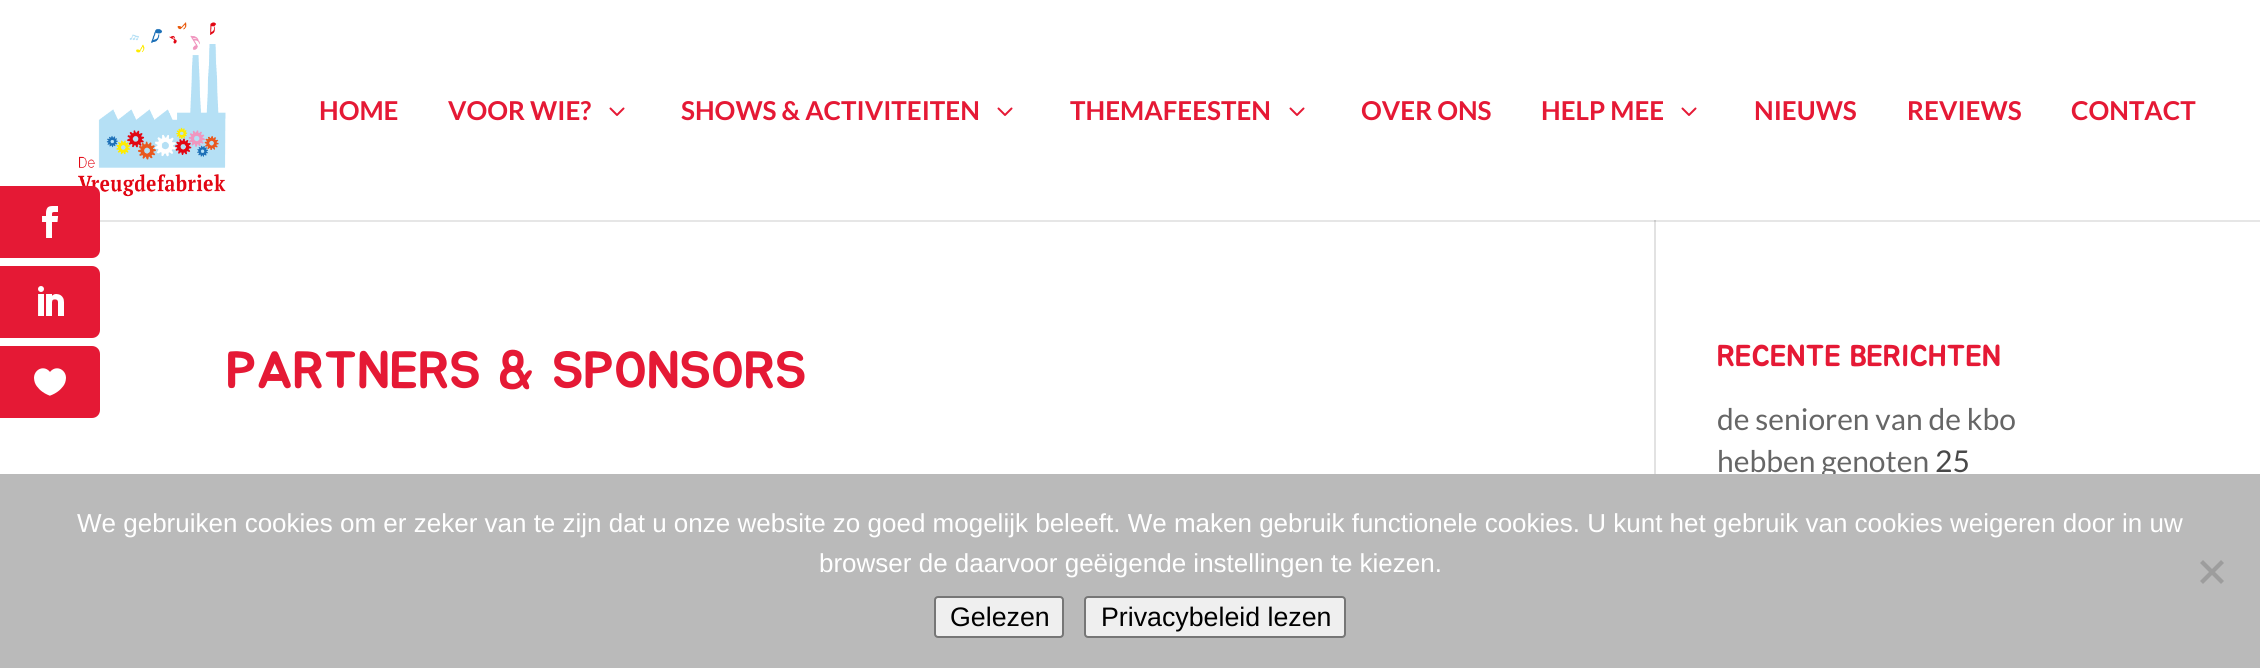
#include <cairo.h>
#include <math.h>
#include <stddef.h>

typedef struct { const char *family; double size; int italic, bold; unsigned color; } style_t;
static cairo_t *ctx;

static void ink(unsigned color) {
    cairo_set_source_rgb(ctx, (color >> 16) / 255.0, (color >> 8 & 255) / 255.0, (color & 255) / 255.0);
}

static void write(double x, double y, const char *s, const style_t *st) {
    cairo_select_font_face(ctx, st->family, st->italic ? CAIRO_FONT_SLANT_ITALIC : CAIRO_FONT_SLANT_NORMAL,
        st->bold ? CAIRO_FONT_WEIGHT_BOLD : CAIRO_FONT_WEIGHT_NORMAL);
    cairo_set_font_size(ctx, st->size);
    ink(st->color);
    cairo_move_to(ctx, x, y);
    cairo_show_text(ctx, s);
}

static void block(double x, double y, double w, double h, unsigned color) {
    ink(color);
    cairo_rectangle(ctx, x, y, w, h);
    cairo_fill(ctx);
}

static void round_path(double x, double y, double w, double h, double r) {
    cairo_new_sub_path(ctx);
    cairo_arc(ctx, x + w - r, y + h - r, r, 0, M_PI / 2);
    cairo_arc(ctx, x + r, y + h - r, r, M_PI / 2, M_PI);
    cairo_arc(ctx, x + r, y + r, r, M_PI, 1.5 * M_PI);
    cairo_arc(ctx, x + w - r, y + r, r, 1.5 * M_PI, 2 * M_PI);
    cairo_close_path(ctx);
}

static void paste(const char *path, double x, double y, double w, double h) {
    cairo_surface_t *image = cairo_image_surface_create_from_png(path);
    cairo_save(ctx);
    cairo_set_source_surface(ctx, image, x, y);
    cairo_rectangle(ctx, x, y, w, h);
    cairo_fill(ctx);
    cairo_restore(ctx);
    cairo_surface_destroy(image);
}

static const style_t s1 = {"Lato", 26, 0, 1, 0xe51935};
static const style_t s2 = {"Jua", 52, 0, 0, 0xe51935};
static const style_t s3 = {"Jua", 30, 0, 0, 0xe51935};
static const style_t s4 = {"Lato", 30, 0, 0, 0x666666};
static const style_t s5 = {"Lato", 30, 0, 0, 0x494949};
static const style_t s6 = {"Liberation Sans", 26, 0, 0, 0xffffff};
static const style_t s7 = {"Liberation Sans", 26.75, 0, 0, 0x000000};

int main(void) {
    cairo_surface_t *surface = cairo_image_surface_create(CAIRO_FORMAT_RGB24, 2260, 668);
    ctx = cairo_create(surface);
    cairo_font_options_t *options = cairo_font_options_create();
    cairo_font_options_set_hint_metrics(options, CAIRO_HINT_METRICS_OFF);
    cairo_font_options_set_hint_style(options, CAIRO_HINT_STYLE_NONE);
    cairo_set_font_options(ctx, options);
    cairo_set_miter_limit(ctx, 4);
    ink(0xffffff);
    cairo_paint(ctx);
    block(100, 220, 2160, 2, 0xe6e6e6);
    paste("pic4.png", 78, 22, 148, 175);
    ink(0xe51935);
    cairo_new_path(ctx);
    cairo_move_to(ctx, 0, 186);
    cairo_line_to(ctx, 92, 186);
    cairo_curve_to(ctx, 96.5, 186, 100, 189.5, 100, 194);
    cairo_line_to(ctx, 100, 250);
    cairo_curve_to(ctx, 100, 254.5, 96.5, 258, 92, 258);
    cairo_line_to(ctx, 0, 258);
    cairo_close_path(ctx);
    cairo_fill(ctx);
    paste("pic1.png", 42, 206, 17, 32);
    cairo_new_path(ctx);
    cairo_move_to(ctx, 0, 266);
    cairo_line_to(ctx, 92, 266);
    cairo_curve_to(ctx, 96.5, 266, 100, 269.5, 100, 274);
    cairo_line_to(ctx, 100, 330);
    cairo_curve_to(ctx, 100, 334.5, 96.5, 338, 92, 338);
    cairo_line_to(ctx, 0, 338);
    cairo_close_path(ctx);
    cairo_fill(ctx);
    paste("pic2.png", 38, 286, 26, 30);
    cairo_new_path(ctx);
    cairo_move_to(ctx, 0, 346);
    cairo_line_to(ctx, 92, 346);
    cairo_curve_to(ctx, 96.5, 346, 100, 349.5, 100, 354);
    cairo_line_to(ctx, 100, 410);
    cairo_curve_to(ctx, 100, 414.5, 96.5, 418, 92, 418);
    cairo_line_to(ctx, 0, 418);
    cairo_close_path(ctx);
    cairo_fill(ctx);
    paste("pic3.png", 34, 368, 32, 28);
    write(319, 120, "HOME", &s1);
    write(448, 120, "VOOR WIE?", &s1);
    paste("pic5.png", 609, 107, 16, 9);
    write(681, 120, "SHOWS & ACTIVITEITEN", &s1);
    paste("pic5.png", 997, 107, 16, 9);
    write(1070, 120, "THEMAFEESTEN", &s1);
    paste("pic5.png", 1289, 107, 16, 9);
    write(1361, 120, "OVER ONS", &s1);
    write(1541, 120, "HELP MEE", &s1);
    paste("pic5.png", 1681, 107, 16, 9);
    write(1754, 120, "NIEUWS", &s1);
    write(1907, 120, "REVIEWS", &s1);
    write(2071, 120, "CONTACT", &s1);
    block(1654, 220, 2, 254, 0xe2e2e2);
    block(1654, 220, 2, 2, 0xcbcbcb);
    write(226, 388, "PARTNERS & SPONSORS", &s2);
    write(1717, 366, "RECENTE BERICHTEN", &s3);
    write(1717, 430, "de senioren van de kbo", &s4);
    write(1717, 472, "hebben genoten", &s4);
    write(1935, 472, "25", &s5);
    block(0, 474, 2260, 194, 0xbababa);
    write(77, 532, "We gebruiken cookies om er zeker van te zijn dat u onze website zo goed mogelijk beleeft. We maken gebruik functionele cookies. U kunt het gebruik van cookies weigeren door in uw", &s6);
    write(819, 572, "browser de daarvoor geëigende instellingen te kiezen.", &s6);
    ink(0x9d9d9d);
    cairo_new_path(ctx);
    cairo_move_to(ctx, 2221, 560);
    cairo_line_to(ctx, 2224, 563);
    cairo_line_to(ctx, 2203, 584);
    cairo_line_to(ctx, 2200, 581);
    cairo_close_path(ctx);
    cairo_fill(ctx);
    cairo_new_path(ctx);
    cairo_move_to(ctx, 2200, 563);
    cairo_line_to(ctx, 2203, 560);
    cairo_line_to(ctx, 2224, 581);
    cairo_line_to(ctx, 2221, 584);
    cairo_close_path(ctx);
    cairo_fill(ctx);
    ink(0xefefef);
    round_path(935, 597, 128, 40, 3);
    cairo_fill_preserve(ctx);
    ink(0x767676);
    cairo_stroke(ctx);
    write(950, 626, "Gelezen", &s7);
    ink(0xefefef);
    round_path(1085, 597, 260, 40, 3);
    cairo_fill_preserve(ctx);
    ink(0x767676);
    cairo_stroke(ctx);
    write(1101, 626, "Privacybeleid lezen", &s7);
    cairo_surface_write_to_png(surface, "screenshot.png");
    cairo_font_options_destroy(options);
    cairo_destroy(ctx);
    cairo_surface_destroy(surface);
    return 0;
}
